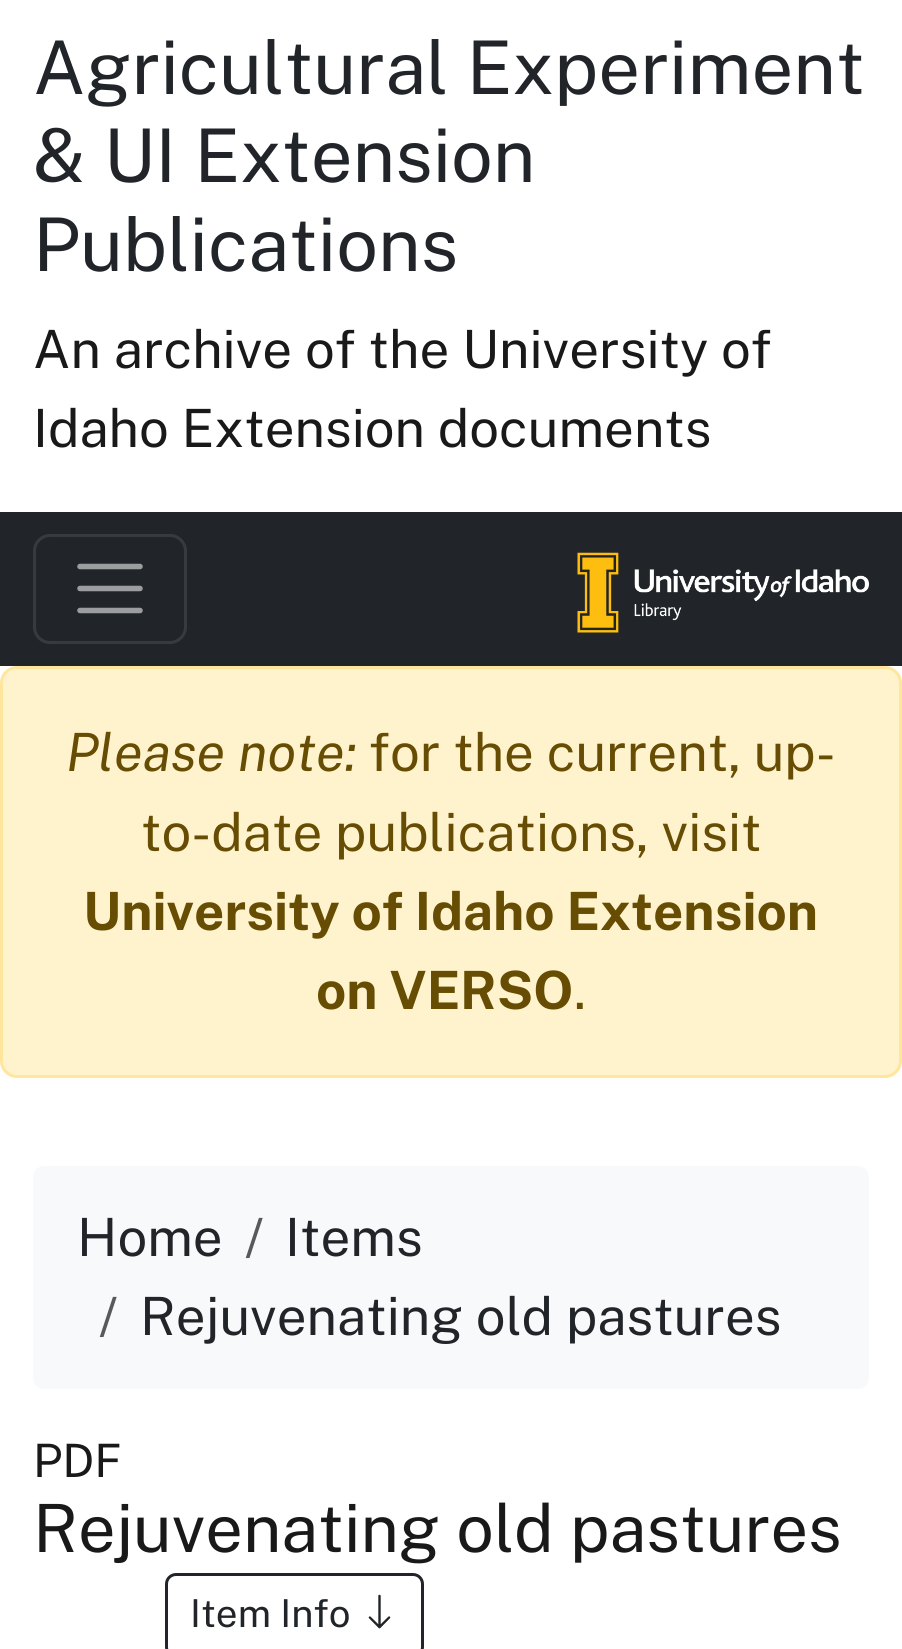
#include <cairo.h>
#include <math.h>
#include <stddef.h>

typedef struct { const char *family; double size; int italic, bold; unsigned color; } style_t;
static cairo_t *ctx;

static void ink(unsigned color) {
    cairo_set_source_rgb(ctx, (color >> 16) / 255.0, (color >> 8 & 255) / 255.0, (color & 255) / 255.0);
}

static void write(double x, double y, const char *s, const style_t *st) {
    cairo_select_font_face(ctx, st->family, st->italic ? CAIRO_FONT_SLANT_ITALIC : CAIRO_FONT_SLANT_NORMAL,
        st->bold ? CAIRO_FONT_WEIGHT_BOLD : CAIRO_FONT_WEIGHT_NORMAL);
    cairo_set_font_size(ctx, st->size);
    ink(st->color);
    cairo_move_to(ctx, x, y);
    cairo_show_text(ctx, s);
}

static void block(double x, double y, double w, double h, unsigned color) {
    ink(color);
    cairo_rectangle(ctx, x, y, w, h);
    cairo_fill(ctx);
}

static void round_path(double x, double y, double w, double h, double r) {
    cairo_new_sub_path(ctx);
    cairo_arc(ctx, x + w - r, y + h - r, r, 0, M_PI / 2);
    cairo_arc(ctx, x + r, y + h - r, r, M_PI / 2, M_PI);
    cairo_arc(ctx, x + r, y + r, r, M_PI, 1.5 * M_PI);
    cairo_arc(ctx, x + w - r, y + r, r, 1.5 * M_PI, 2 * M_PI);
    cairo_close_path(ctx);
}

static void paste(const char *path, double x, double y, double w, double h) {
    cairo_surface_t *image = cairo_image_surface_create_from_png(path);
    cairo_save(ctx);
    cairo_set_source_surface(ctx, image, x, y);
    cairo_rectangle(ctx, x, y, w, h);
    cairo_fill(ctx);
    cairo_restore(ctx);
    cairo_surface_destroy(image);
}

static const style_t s1 = {"Public Sans", 74, 0, 0, 0x212529};
static const style_t s2 = {"Public Sans", 52.75, 0, 0, 0x191919};
static const style_t s3 = {"Public Sans", 52.75, 1, 0, 0x664d03};
static const style_t s4 = {"Public Sans", 52.75, 0, 0, 0x664d03};
static const style_t s5 = {"Public Sans", 52.75, 0, 1, 0x664d03};
static const style_t s6 = {"Public Sans", 52.75, 0, 0, 0x212529};
static const style_t s7 = {"Public Sans", 52.75, 0, 0, 0x575a5d};
static const style_t s8 = {"Public Sans", 46, 0, 0, 0x191919};
static const style_t s9 = {"Public Sans", 66.5, 0, 0, 0x191919};
static const style_t s10 = {"Public Sans", 38.5, 0, 0, 0x212529};

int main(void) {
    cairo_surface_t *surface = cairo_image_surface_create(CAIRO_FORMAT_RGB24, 902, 1649);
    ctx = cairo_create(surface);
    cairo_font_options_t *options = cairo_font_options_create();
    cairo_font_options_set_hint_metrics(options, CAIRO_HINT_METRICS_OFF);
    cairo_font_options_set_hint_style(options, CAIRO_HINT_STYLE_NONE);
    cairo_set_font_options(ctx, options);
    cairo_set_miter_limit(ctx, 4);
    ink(0xffffff);
    cairo_paint(ctx);
    write(33, 94, "Agricultural Experiment", &s1);
    write(33, 182, "& UI Extension", &s1);
    write(33, 271, "Publications", &s1);
    write(33, 368, "An archive of the University of", &s2);
    write(33, 447, "Idaho Extension documents", &s2);
    block(0, 512, 902, 154, 0x212529);
    round_path(34.5, 535.5, 151, 107, 15.5);
    ink(0x373b3e);
    cairo_set_line_width(ctx, 3);
    cairo_stroke(ctx);
    cairo_new_path(ctx);
    cairo_move_to(ctx, 80, 566.5);
    cairo_line_to(ctx, 140, 566.5);
    cairo_move_to(ctx, 80, 588.5);
    cairo_line_to(ctx, 140, 588.5);
    cairo_move_to(ctx, 80, 610.5);
    cairo_line_to(ctx, 140, 610.5);
    ink(0x9b9d9f);
    cairo_set_line_width(ctx, 5.5);
    cairo_set_line_cap(ctx, CAIRO_LINE_CAP_ROUND);
    cairo_stroke(ctx);
    paste("pic1.png", 577, 552, 292, 81);
    ink(0xfff3cd);
    round_path(1.5, 667.5, 899, 409, 15.5);
    cairo_fill_preserve(ctx);
    ink(0xffe69c);
    cairo_set_line_width(ctx, 3);
    cairo_set_line_cap(ctx, CAIRO_LINE_CAP_BUTT);
    cairo_stroke(ctx);
    write(66, 771, "Please note:", &s3);
    write(369, 771, "for the current, up-", &s4);
    write(141, 851, "to-date publications, visit", &s4);
    write(83, 930, "University of Idaho Extension", &s5);
    write(316, 1009, "on VERSO", &s5);
    write(574, 1009, ".", &s4);
    ink(0xf8f9fa);
    round_path(33, 1166, 836, 223, 11);
    cairo_fill(ctx);
    write(77, 1256, "Home", &s6);
    write(245, 1256, "/", &s7);
    write(285, 1256, "Items", &s6);
    write(99, 1335, "/", &s7);
    write(140, 1335, "Rejuvenating old pastures", &s6);
    write(33, 1477, "PDF", &s8);
    write(33, 1552, "Rejuvenating old pastures", &s9);
    round_path(166.5, 1574.5, 256, 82, 9.5);
    ink(0x212529);
    cairo_stroke(ctx);
    write(190, 1627, "Item Info", &s10);
    paste("pic2.png", 368, 1594, 23, 35);
    cairo_surface_write_to_png(surface, "screenshot.png");
    cairo_font_options_destroy(options);
    cairo_destroy(ctx);
    cairo_surface_destroy(surface);
    return 0;
}
